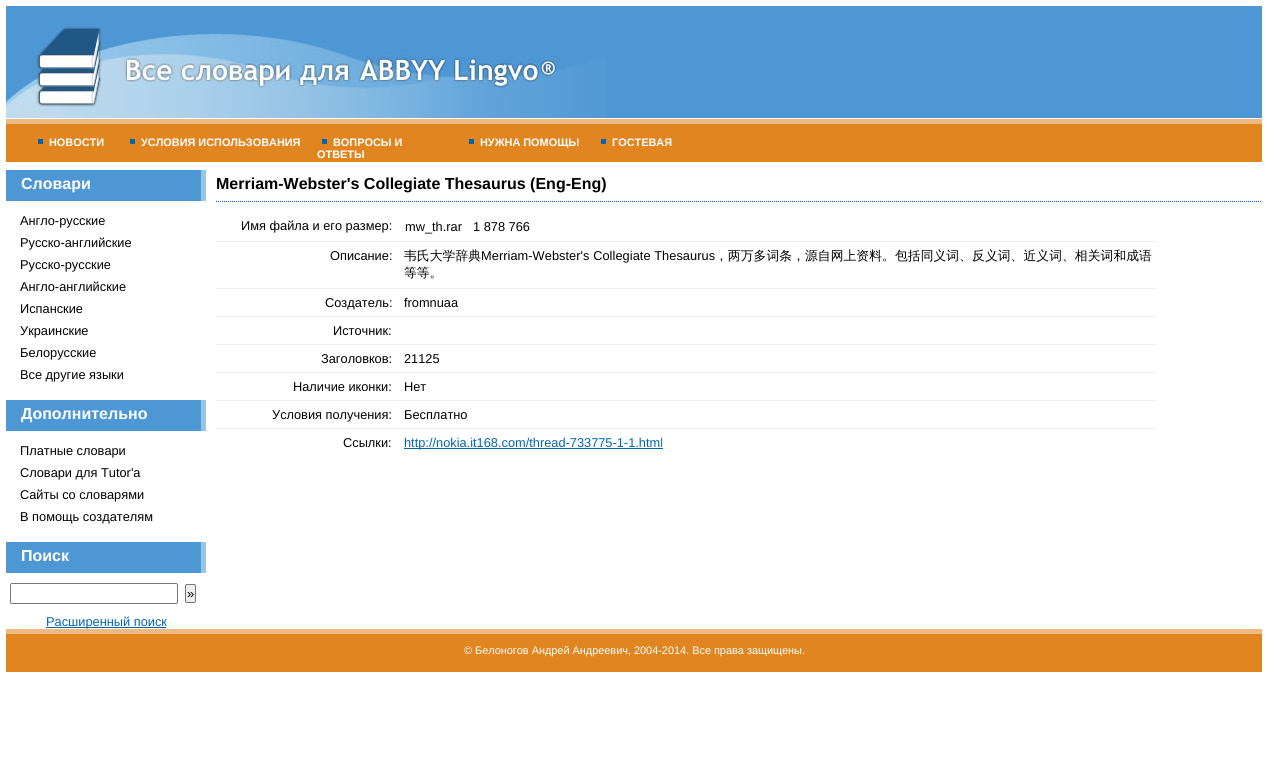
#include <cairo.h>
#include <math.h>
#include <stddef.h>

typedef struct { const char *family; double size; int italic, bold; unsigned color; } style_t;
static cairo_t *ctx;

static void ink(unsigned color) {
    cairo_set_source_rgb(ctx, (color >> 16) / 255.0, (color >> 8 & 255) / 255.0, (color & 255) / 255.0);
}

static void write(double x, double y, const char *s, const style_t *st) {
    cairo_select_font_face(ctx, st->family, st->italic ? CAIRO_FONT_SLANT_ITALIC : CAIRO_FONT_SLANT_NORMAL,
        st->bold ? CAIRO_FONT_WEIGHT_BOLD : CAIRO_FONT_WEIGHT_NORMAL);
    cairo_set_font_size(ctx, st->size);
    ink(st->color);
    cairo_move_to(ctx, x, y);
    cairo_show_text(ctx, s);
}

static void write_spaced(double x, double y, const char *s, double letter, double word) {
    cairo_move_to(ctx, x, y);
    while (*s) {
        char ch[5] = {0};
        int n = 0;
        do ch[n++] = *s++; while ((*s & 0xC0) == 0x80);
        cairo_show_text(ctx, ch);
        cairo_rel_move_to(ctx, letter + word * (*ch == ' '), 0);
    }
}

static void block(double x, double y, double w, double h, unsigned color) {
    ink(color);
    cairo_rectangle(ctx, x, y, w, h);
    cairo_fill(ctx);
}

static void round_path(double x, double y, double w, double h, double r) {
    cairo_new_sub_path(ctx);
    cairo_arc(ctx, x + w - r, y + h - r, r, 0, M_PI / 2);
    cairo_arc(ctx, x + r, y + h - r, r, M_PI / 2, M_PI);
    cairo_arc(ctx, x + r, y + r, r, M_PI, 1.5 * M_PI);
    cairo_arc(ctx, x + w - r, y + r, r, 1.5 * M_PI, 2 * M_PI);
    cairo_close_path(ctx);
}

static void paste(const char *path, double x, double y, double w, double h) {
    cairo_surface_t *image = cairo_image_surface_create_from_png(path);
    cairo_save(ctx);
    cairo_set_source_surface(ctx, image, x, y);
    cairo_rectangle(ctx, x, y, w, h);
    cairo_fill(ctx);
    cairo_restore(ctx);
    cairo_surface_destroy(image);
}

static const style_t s1 = {"Liberation Sans", 10.9, 0, 1, 0xffffff};
static const style_t s2 = {"Liberation Sans", 16, 0, 1, 0xffffff};
static const style_t s3 = {"Liberation Sans", 12.8, 0, 0, 0x000000};
static const style_t s4 = {"Liberation Sans", 13, 0, 0, 0x000000};
static const style_t s5 = {"Liberation Sans", 12.8, 0, 0, 0x0065ae};
static const style_t s6 = {"Liberation Sans", 16, 0, 1, 0x000000};
static const style_t s7 = {"WenQuanYi Zen Hei Medium", 12.8, 0, 0, 0x000000};
static const style_t s8 = {"Liberation Sans", 10.9, 0, 0, 0xffffff};

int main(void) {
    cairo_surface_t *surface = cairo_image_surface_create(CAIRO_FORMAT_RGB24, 1268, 772);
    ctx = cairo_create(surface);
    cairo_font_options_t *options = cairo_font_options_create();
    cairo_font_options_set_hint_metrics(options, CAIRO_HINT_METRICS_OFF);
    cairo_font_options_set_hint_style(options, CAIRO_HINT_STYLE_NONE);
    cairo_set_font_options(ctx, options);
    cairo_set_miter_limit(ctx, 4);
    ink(0xffffff);
    cairo_paint(ctx);
    block(6, 6, 1256, 112, 0x4d97d5);
    paste("pic1.png", 6, 22, 600, 96);
    block(6, 124, 1256, 38, 0xe0851f);
    block(6, 119, 1256, 5, 0xeeba83);
    block(38, 139, 5, 5, 0x0065ae);
    write(49, 146, "НОВОСТИ", &s1);
    block(130, 139, 5, 5, 0x0065ae);
    write(141, 146, "УСЛОВИЯ ИСПОЛЬЗОВАНИЯ", &s1);
    block(322, 139, 5, 5, 0x0065ae);
    write(333, 146, "ВОПРОСЫ И", &s1);
    write(317, 158, "ОТВЕТЫ", &s1);
    block(469, 139, 5, 5, 0x0065ae);
    write(480, 146, "НУЖНА ПОМОЩЬ!", &s1);
    block(601, 139, 5, 5, 0x0065ae);
    write(612, 146, "ГОСТЕВАЯ", &s1);
    block(6, 170, 195, 31, 0x4d97d5);
    block(201, 170, 5, 31, 0x98c5e7);
    write(21, 189, "Словари", &s2);
    write(20, 225, "Англо-русские", &s3);
    write(20, 247, "Русско-английские", &s3);
    write(20, 269, "Русско-русские", &s3);
    write(20, 291, "Англо-английские", &s3);
    write(20, 313, "Испанские", &s3);
    write(20, 335, "Украинские", &s3);
    write(20, 357, "Белорусские", &s3);
    write(20, 379, "Все другие языки", &s3);
    block(6, 400, 195, 31, 0x4d97d5);
    block(201, 400, 5, 31, 0x98c5e7);
    write(21, 419, "Дополнительно", &s2);
    write(20, 455, "Платные словари", &s3);
    write(20, 477, "Словари для Tutor'а", &s3);
    write(20, 499, "Сайты со словарями", &s3);
    write(20, 521, "В помощь создателям", &s3);
    block(6, 542, 195, 31, 0x4d97d5);
    block(201, 542, 5, 31, 0x98c5e7);
    write(21, 561, "Поиск", &s2);
    round_path(10.5, 583.5, 167, 20, 1.5);
    ink(0x767676);
    cairo_set_line_width(ctx, 1);
    cairo_stroke(ctx);
    ink(0xefefef);
    round_path(185.5, 584.5, 10, 18, 1.5);
    cairo_fill_preserve(ctx);
    ink(0x767676);
    cairo_stroke(ctx);
    write(187, 598, "»", &s4);
    block(46, 627, 120, 1, 0x0065ae);
    write(46, 626, "Расширенный поиск", &s5);
    paste("pic2.png", 216, 201, 1045, 1);
    write(216, 189, "Merriam-Webster's Collegiate Thesaurus (Eng-Eng)", &s6);
    block(216, 241, 941, 1, 0xeeeeee);
    write(241, 230, "Имя файла и его размер:", &s3);
    write(405, 231, "mw_th.rar", &s3);
    write(473, 231, "1 878 766", &s3);
    block(216, 288, 941, 1, 0xeeeeee);
    write(330, 260, "Описание:", &s3);
    cairo_select_font_face(ctx, "WenQuanYi Zen Hei Medium", CAIRO_FONT_SLANT_NORMAL, CAIRO_FONT_WEIGHT_NORMAL);
    write_spaced(404, 260, "韦氏大学辞典", 0.05, 0);
    cairo_select_font_face(ctx, "Liberation Sans", CAIRO_FONT_SLANT_NORMAL, CAIRO_FONT_WEIGHT_NORMAL);
    write_spaced(481, 260, "Merriam-Webster's Collegiate Thesaurus", 0.05, 0);
    cairo_select_font_face(ctx, "WenQuanYi Zen Hei Medium", CAIRO_FONT_SLANT_NORMAL, CAIRO_FONT_WEIGHT_NORMAL);
    write_spaced(715, 260, "，两万多词条，源自网上资料。包括同义词、反义词、近义词、相关词和成语", 0.05, 0);
    write(404, 277, "等等。", &s7);
    block(216, 316, 941, 1, 0xeeeeee);
    write(325, 307, "Создатель:", &s3);
    write(404, 307, "fromnuaa", &s3);
    block(216, 344, 941, 1, 0xeeeeee);
    write(333, 335, "Источник:", &s3);
    block(216, 372, 941, 1, 0xeeeeee);
    write(321, 363, "Заголовков:", &s3);
    write(404, 363, "21125", &s3);
    block(216, 400, 941, 1, 0xeeeeee);
    write(293, 391, "Наличие иконки:", &s3);
    write(404, 391, "Нет", &s3);
    block(216, 428, 941, 1, 0xeeeeee);
    write(272, 419, "Условия получения:", &s3);
    write(404, 419, "Бесплатно", &s3);
    write(343, 447, "Ссылки:", &s3);
    block(404, 448, 259, 1, 0x0065ae);
    write(404, 447, "http://nokia.it168.com/thread-733775-1-1.html", &s5);
    block(6, 634, 1256, 38, 0xe0851f);
    block(6, 629, 1256, 5, 0xeeba83);
    write(464, 654, "© Белоногов Андрей Андреевич, 2004-2014. Все права защищены.", &s8);
    cairo_surface_write_to_png(surface, "screenshot.png");
    cairo_font_options_destroy(options);
    cairo_destroy(ctx);
    cairo_surface_destroy(surface);
    return 0;
}
